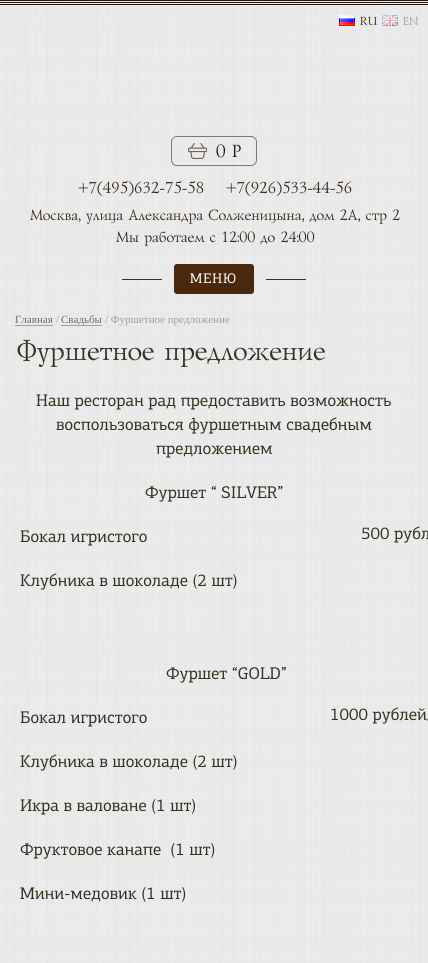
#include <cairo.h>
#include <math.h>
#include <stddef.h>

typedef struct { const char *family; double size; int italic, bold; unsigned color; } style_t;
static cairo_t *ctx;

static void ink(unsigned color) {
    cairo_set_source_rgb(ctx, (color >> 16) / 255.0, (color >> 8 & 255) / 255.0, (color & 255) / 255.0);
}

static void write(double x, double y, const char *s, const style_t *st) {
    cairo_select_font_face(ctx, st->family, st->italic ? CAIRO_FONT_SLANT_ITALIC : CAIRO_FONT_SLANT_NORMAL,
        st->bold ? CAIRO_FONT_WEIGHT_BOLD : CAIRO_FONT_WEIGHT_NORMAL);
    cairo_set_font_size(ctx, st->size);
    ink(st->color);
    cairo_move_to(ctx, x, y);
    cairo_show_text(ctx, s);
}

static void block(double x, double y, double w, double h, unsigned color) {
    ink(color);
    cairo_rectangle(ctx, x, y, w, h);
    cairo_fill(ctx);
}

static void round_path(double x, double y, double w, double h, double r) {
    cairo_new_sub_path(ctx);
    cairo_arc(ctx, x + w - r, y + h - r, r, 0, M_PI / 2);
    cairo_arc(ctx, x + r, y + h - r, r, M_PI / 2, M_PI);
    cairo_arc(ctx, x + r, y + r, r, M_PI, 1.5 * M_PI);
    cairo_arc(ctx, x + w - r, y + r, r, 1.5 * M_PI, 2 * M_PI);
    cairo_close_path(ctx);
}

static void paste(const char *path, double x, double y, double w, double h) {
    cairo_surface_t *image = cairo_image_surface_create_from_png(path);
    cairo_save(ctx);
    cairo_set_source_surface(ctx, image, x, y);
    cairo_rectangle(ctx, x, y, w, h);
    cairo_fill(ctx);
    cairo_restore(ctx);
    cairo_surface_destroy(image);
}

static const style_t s1 = {"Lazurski", 12, 0, 0, 0x462810};
static const style_t s2 = {"Lazurski", 12, 0, 0, 0xa89c93};
static const style_t s3 = {"Lazurski", 15, 0, 0, 0x372717};
static const style_t s4 = {"Lazurski", 18, 0, 0, 0x1c1608};
static const style_t s5 = {"Lazurski", 16, 0, 0, 0x372717};
static const style_t s6 = {"Liberation Serif", 11, 0, 0, 0x716c5f};
static const style_t s7 = {"Liberation Serif", 11, 0, 0, 0xa7a08d};
static const style_t s8 = {"Lazurski", 28, 0, 0, 0x373122};

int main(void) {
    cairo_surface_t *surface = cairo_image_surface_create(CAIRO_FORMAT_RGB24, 428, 963);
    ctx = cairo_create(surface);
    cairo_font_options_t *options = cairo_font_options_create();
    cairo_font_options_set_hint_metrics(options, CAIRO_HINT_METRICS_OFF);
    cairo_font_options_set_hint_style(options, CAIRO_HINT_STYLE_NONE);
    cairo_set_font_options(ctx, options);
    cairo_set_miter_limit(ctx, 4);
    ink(0xffffff);
    cairo_paint(ctx);
    paste("pic1.png", 0, 5, 428, 958);
    paste("pic2.png", 0, 0, 428, 5);
    paste("pic3.png", 339, 15, 16, 11);
    write(359, 25, "RU", &s1);
    paste("pic4.png", 382, 15, 16, 11);
    write(402, 25, "EN", &s2);
    write(29, 220, "Москва, улица Александра Солженицына, дом 2А, стр 2", &s3);
    write(115, 242, "Мы работаем с 12:00 до 24:00", &s3);
    round_path(171.5, 136.5, 85, 29, 5.5);
    ink(0x83776b);
    cairo_set_line_width(ctx, 1);
    cairo_stroke(ctx);
    paste("pic5.png", 188, 143, 19, 16);
    write(215, 157, "0 Р", &s4);
    write(77, 193, "+7(495)632-75-58", &s5);
    write(225, 193, "+7(926)533-44-56", &s5);
    ink(0x4a280d);
    round_path(174, 264, 80, 30, 3);
    cairo_fill(ctx);
    block(122, 279, 40, 1, 0x4a280d);
    paste("pic6.png", 190, 273, 46, 11);
    block(266, 279, 40, 1, 0x4a280d);
    write(15, 323, "Главная", &s6);
    block(15, 325, 38, 1, 0xac9f95);
    write(56, 323, "/", &s7);
    block(61, 325, 41, 1, 0xac9f95);
    write(61, 323, "Свадьбы", &s6);
    write(105, 323, "/ Фуршетное предложение", &s7);
    write(15, 360, "Фуршетное предложение", &s8);
    paste("pic7.png", 36, 394, 355, 16);
    paste("pic8.png", 56, 417, 316, 17);
    paste("pic9.png", 156, 445, 116, 13);
    paste("pic10.png", 145, 485, 138, 17);
    paste("pic11.png", 20, 530, 127, 16);
    paste("pic12.png", 20, 573, 217, 17);
    paste("pic13.png", 361, 526, 67, 17);
    paste("pic14.png", 166, 666, 120, 17);
    paste("pic15.png", 20, 711, 127, 16);
    paste("pic16.png", 20, 754, 217, 17);
    paste("pic17.png", 20, 799, 175, 16);
    paste("pic18.png", 20, 843, 195, 16);
    paste("pic19.png", 20, 887, 166, 15);
    paste("pic20.png", 331, 707, 97, 17);
    cairo_surface_write_to_png(surface, "screenshot.png");
    cairo_font_options_destroy(options);
    cairo_destroy(ctx);
    cairo_surface_destroy(surface);
    return 0;
}
